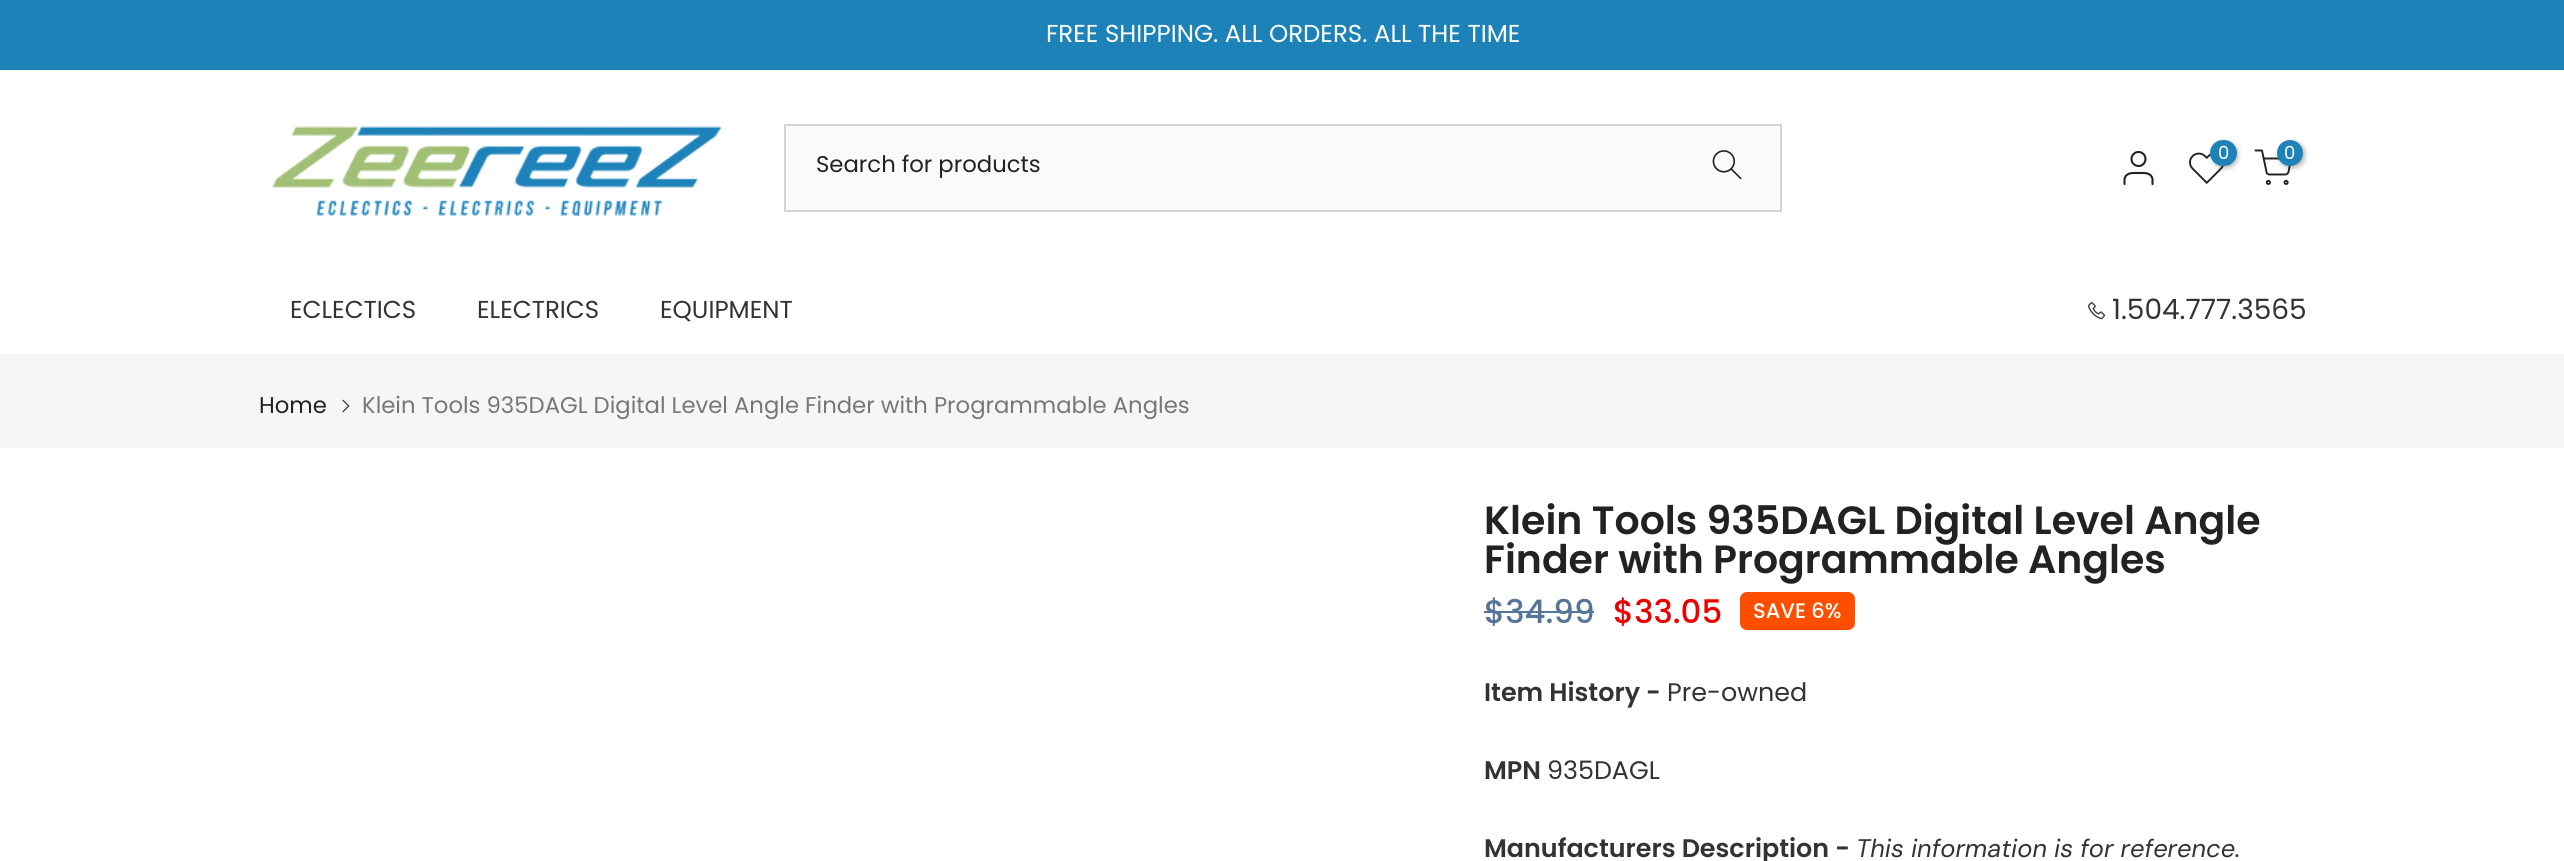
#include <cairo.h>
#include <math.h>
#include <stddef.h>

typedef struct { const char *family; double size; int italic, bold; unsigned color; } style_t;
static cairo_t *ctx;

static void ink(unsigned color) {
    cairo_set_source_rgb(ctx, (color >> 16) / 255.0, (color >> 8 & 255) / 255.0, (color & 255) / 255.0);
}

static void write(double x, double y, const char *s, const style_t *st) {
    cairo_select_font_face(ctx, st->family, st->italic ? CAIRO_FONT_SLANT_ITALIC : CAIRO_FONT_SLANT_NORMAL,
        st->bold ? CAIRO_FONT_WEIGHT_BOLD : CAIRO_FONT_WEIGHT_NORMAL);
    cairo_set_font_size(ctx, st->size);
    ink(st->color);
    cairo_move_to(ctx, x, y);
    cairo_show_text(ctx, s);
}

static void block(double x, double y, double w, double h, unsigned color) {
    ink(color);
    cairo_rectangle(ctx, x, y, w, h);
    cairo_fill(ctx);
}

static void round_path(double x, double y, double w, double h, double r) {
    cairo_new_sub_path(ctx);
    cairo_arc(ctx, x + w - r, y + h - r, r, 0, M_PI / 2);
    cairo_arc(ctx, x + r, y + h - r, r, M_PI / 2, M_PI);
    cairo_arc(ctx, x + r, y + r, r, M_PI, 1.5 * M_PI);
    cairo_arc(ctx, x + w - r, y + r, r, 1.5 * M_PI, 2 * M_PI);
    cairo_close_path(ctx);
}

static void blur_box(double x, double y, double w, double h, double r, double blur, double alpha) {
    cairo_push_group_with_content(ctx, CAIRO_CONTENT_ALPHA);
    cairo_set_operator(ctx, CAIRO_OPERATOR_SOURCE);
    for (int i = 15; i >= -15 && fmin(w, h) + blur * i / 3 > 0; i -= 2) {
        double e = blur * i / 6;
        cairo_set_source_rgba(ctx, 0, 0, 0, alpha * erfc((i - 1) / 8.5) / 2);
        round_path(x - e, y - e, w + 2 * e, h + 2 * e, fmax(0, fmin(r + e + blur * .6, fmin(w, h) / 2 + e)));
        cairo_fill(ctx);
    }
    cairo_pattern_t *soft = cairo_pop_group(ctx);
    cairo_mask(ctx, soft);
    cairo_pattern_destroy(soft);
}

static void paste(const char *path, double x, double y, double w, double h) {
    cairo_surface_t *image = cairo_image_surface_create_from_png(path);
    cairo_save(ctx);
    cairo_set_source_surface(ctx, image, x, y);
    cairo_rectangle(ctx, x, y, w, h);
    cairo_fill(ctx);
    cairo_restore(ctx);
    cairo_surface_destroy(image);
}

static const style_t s1 = {"Poppins", 24.5, 0, 0, 0xffffff};
static const style_t s2 = {"Poppins", 18, 0, 0, 0xffffff};
static const style_t s3 = {"Poppins", 22.75, 0, 0, 0x222222};
static const style_t s4 = {"Poppins", 24.5, 0, 0, 0x333333};
static const style_t s5 = {"Poppins", 28, 0, 0, 0x333333};
static const style_t s6 = {"Poppins", 22.75, 0, 0, 0x777777};
static const style_t s7 = {"Poppins SemiBold", 39.4, 0, 0, 0x222222};
static const style_t s8 = {"Poppins Medium", 32.5, 0, 0, 0x567599};
static const style_t s9 = {"Poppins Medium", 32.5, 0, 0, 0xec0101};
static const style_t s10 = {"Poppins Medium", 21, 0, 0, 0xffffff};
static const style_t s11 = {"Poppins SemiBold", 25.4, 0, 0, 0x333333};
static const style_t s12 = {"Poppins", 25.4, 0, 0, 0x333333};
static const style_t s13 = {"DM Sans", 25.4, 1, 0, 0x333333};

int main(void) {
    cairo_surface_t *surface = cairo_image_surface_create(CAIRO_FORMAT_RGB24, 2564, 861);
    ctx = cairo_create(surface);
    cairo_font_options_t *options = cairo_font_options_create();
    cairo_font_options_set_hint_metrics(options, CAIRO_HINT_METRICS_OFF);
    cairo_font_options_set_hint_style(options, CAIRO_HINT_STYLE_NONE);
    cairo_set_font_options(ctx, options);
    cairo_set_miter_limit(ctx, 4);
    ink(0xffffff);
    cairo_paint(ctx);
    block(0, 0, 2564, 70, 0x1d82b8);
    write(1046, 42, "FREE SHIPPING. ALL ORDERS. ALL THE TIME", &s1);
    paste("pic1.png", 272, 126, 450, 91);
    cairo_arc(ctx, 2138.5, 159, 7, 0, 2 * M_PI);
    ink(0x222222);
    cairo_set_line_width(ctx, 2.1);
    cairo_stroke(ctx);
    cairo_new_path(ctx);
    cairo_move_to(ctx, 2152.5, 184);
    cairo_line_to(ctx, 2152.5, 179);
    cairo_curve_to(ctx, 2151, 172, 2143.5, 173, 2138.5, 173);
    cairo_curve_to(ctx, 2133.5, 173, 2126, 172, 2124.5, 179);
    cairo_line_to(ctx, 2124.5, 184);
    cairo_set_line_cap(ctx, CAIRO_LINE_CAP_ROUND);
    cairo_set_line_join(ctx, CAIRO_LINE_JOIN_ROUND);
    cairo_stroke(ctx);
    paste("pic2.png", 2189, 152, 35, 32);
    ink(0x000000);
    blur_box(2212, 142, 26, 26, 13, 2.5, 0.3);
    ink(0x1d82b8);
    round_path(2210, 140, 27, 26, 13);
    cairo_fill(ctx);
    write(2218, 159, "0", &s2);
    cairo_new_path(ctx);
    cairo_move_to(ctx, 2255.5, 150.5);
    cairo_line_to(ctx, 2262, 150.5);
    cairo_line_to(ctx, 2266.5, 172);
    cairo_curve_to(ctx, 2266.5, 173.5, 2268, 174.5, 2269.5, 174.5);
    cairo_line_to(ctx, 2285, 174.5);
    cairo_curve_to(ctx, 2286.5, 174.5, 2288, 173.5, 2288.5, 172);
    cairo_line_to(ctx, 2291, 158.5);
    cairo_line_to(ctx, 2263.5, 158.5);
    ink(0x222222);
    cairo_set_line_width(ctx, 1.9);
    cairo_stroke(ctx);
    ink(0x000000);
    blur_box(2279, 142, 26, 26, 13, 2.5, 0.3);
    ink(0x1d82b8);
    cairo_arc(ctx, 2290, 153, 13, 0, 2 * M_PI);
    cairo_fill(ctx);
    write(2284, 159, "0", &s2);
    cairo_new_path(ctx);
    cairo_arc(ctx, 2268.4, 182.4, 1.6, 0, 2 * M_PI);
    ink(0x222222);
    cairo_set_line_cap(ctx, CAIRO_LINE_CAP_BUTT);
    cairo_set_line_join(ctx, CAIRO_LINE_JOIN_MITER);
    cairo_stroke(ctx);
    cairo_arc(ctx, 2286.1, 182.4, 1.6, 0, 2 * M_PI);
    cairo_stroke(ctx);
    ink(0xfafafa);
    cairo_rectangle(ctx, 785, 125, 996, 86);
    cairo_fill_preserve(ctx);
    ink(0xd4d4d4);
    cairo_set_line_width(ctx, 2);
    cairo_stroke(ctx);
    write(816, 172, "Search for products", &s3);
    paste("pic3.png", 1712, 150, 30, 30);
    write(290, 318, "ECLECTICS", &s4);
    write(477, 318, "ELECTRICS", &s4);
    write(660, 318, "EQUIPMENT", &s4);
    paste("pic4.png", 2088, 302, 17, 18);
    write(2112, 319, "1.504.777.3565", &s5);
    block(0, 354, 2564, 94, 0xf6f6f6);
    write(259, 413, "Home", &s3);
    paste("pic5.png", 342, 399, 8, 14);
    write(362, 413, "Klein Tools 935DAGL Digital Level Angle Finder with Programmable Angles", &s6);
    write(1484, 534, "Klein Tools 935DAGL Digital Level Angle", &s7);
    write(1484, 573, "Finder with Programmable Angles", &s7);
    write(1484, 623, "$34.99", &s8);
    block(1484, 611, 110, 2, 0x567599);
    write(1613, 623, "$33.05", &s9);
    ink(0xff4e00);
    round_path(1740, 592, 115, 38, 7);
    cairo_fill(ctx);
    write(1753, 618, "SAVE 6%", &s10);
    write(1484, 701, "Item History -", &s11);
    write(1667, 701, "Pre-owned", &s12);
    write(1484, 779, "MPN", &s11);
    write(1547, 779, "935DAGL", &s12);
    write(1484, 857, "Manufacturers Description -", &s11);
    write(1856, 857, "This information is for reference.", &s13);
    cairo_surface_write_to_png(surface, "screenshot.png");
    cairo_font_options_destroy(options);
    cairo_destroy(ctx);
    cairo_surface_destroy(surface);
    return 0;
}
